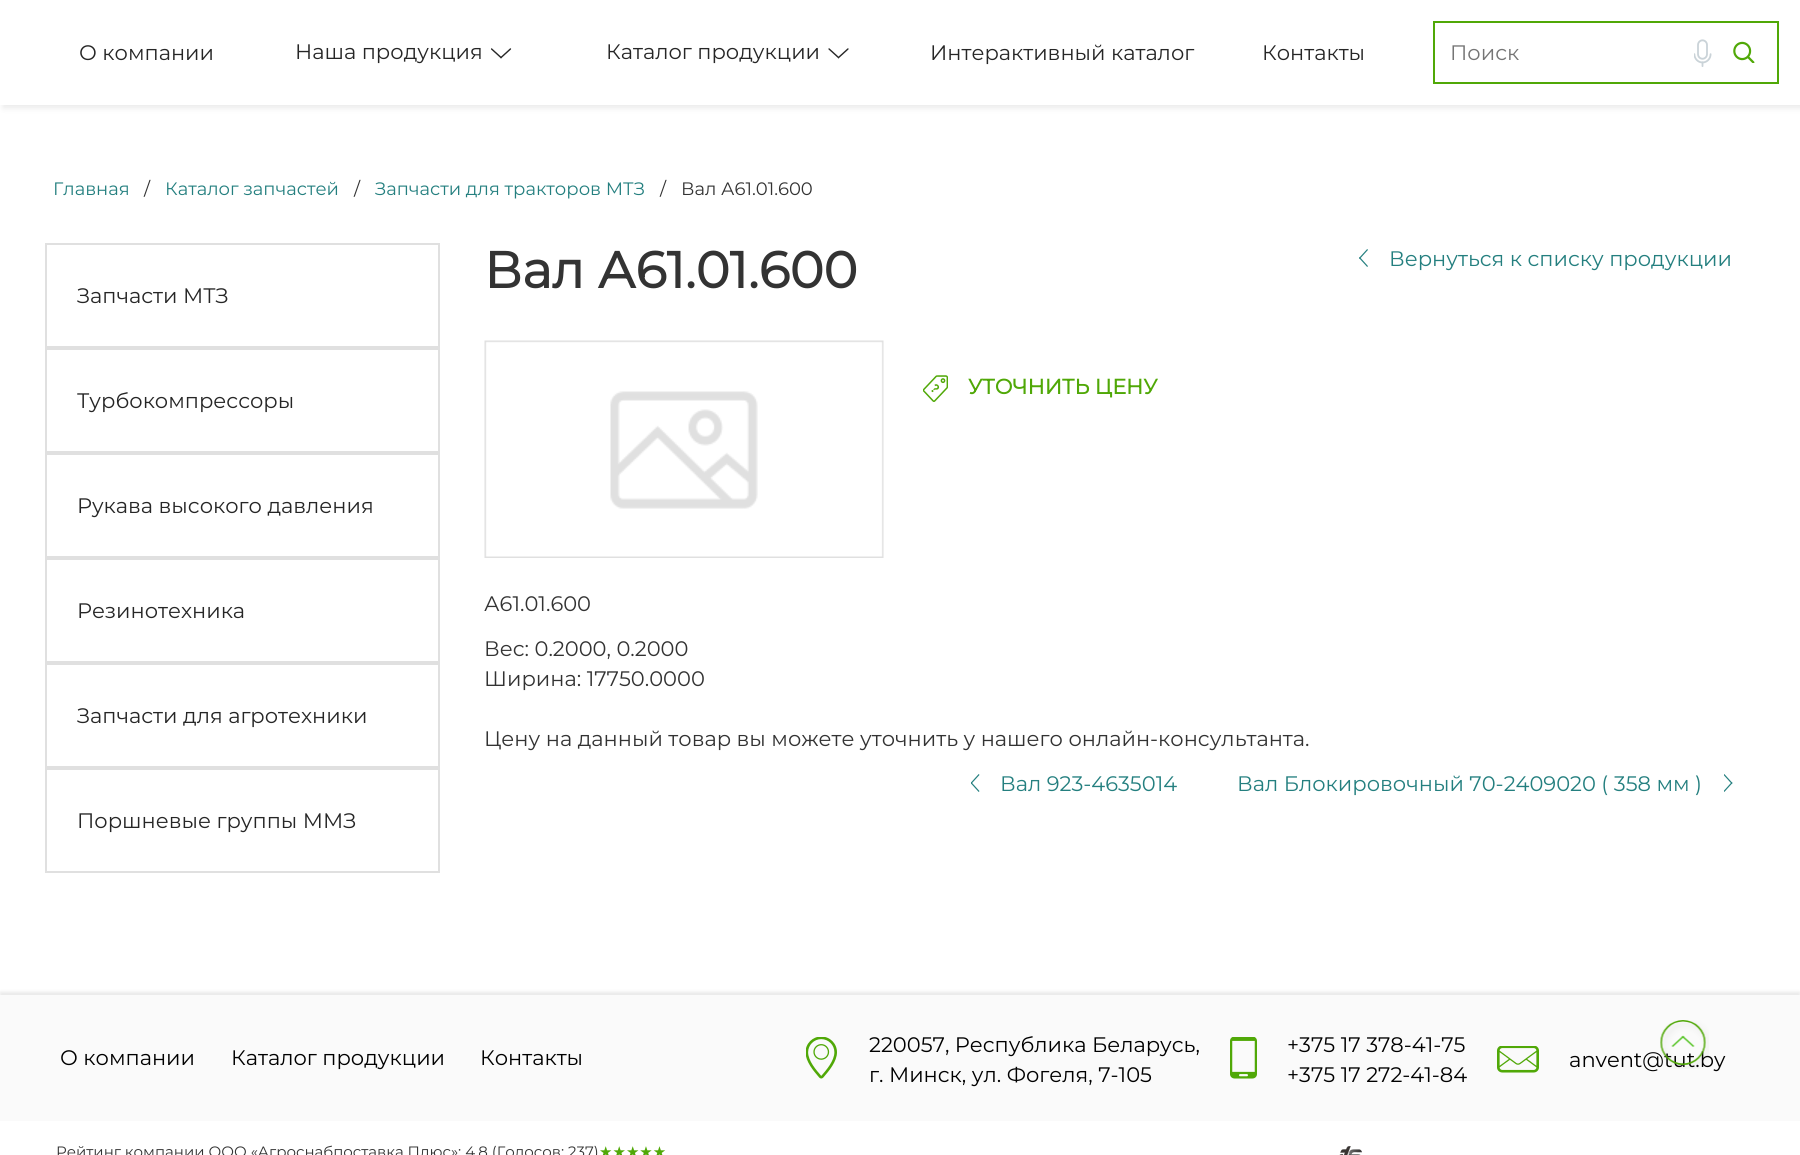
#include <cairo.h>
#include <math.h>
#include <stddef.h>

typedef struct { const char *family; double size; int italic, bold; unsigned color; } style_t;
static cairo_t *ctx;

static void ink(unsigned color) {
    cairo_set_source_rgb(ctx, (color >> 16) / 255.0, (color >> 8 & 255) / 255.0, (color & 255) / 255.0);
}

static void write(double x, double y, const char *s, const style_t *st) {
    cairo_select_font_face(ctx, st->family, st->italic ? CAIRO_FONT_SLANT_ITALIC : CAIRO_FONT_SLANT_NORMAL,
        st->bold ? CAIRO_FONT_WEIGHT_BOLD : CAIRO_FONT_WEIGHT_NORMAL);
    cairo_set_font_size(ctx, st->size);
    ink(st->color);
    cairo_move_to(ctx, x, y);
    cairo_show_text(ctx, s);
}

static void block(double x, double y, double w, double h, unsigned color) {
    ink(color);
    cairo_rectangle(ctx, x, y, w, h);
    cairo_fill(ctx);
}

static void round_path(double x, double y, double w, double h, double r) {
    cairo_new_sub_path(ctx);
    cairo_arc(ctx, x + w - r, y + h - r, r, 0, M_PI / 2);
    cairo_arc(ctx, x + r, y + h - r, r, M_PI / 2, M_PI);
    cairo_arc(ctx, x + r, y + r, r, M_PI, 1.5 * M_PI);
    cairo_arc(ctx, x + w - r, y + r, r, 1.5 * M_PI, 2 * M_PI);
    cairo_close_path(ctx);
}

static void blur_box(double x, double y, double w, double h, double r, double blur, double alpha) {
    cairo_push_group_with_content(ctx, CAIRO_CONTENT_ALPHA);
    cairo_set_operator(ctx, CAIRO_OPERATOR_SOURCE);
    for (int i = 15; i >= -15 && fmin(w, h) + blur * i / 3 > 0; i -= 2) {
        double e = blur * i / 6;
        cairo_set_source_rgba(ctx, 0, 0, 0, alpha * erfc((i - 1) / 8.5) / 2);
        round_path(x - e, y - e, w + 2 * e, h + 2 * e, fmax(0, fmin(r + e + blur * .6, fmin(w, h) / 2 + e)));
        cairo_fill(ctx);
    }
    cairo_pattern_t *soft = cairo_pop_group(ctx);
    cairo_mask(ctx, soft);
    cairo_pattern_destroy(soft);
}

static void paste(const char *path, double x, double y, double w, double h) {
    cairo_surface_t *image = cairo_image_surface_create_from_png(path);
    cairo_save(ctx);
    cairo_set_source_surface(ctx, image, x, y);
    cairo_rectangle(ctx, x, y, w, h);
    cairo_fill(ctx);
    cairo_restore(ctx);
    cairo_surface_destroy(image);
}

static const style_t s1 = {"Montserrat Thin", 21, 0, 0, 0x262626};
static const style_t s2 = {"Montserrat Thin", 21, 0, 0, 0x757575};
static const style_t s3 = {"Montserrat Thin", 18, 0, 0, 0x247f7f};
static const style_t s4 = {"Montserrat Thin", 18, 0, 0, 0x333333};
static const style_t s5 = {"Montserrat", 51, 0, 1, 0x333333};
static const style_t s6 = {"Montserrat Thin", 21, 0, 0, 0x247f7f};
static const style_t s7 = {"Montserrat", 21, 0, 1, 0x50a807};
static const style_t s8 = {"Montserrat Thin", 21, 0, 0, 0x333333};
static const style_t s9 = {"Montserrat Thin", 21, 0, 0, 0x000000};
static const style_t s10 = {"Montserrat Thin", 15, 0, 0, 0x333333};
static const style_t s11 = {"DejaVu Sans", 15, 0, 0, 0x50a807};

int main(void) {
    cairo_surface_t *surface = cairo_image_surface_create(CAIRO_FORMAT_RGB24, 1800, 1155);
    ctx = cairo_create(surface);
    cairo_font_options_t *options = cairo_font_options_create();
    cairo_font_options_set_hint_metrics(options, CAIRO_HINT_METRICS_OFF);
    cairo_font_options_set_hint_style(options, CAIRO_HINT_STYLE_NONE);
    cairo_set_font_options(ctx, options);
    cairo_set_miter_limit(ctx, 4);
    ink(0xffffff);
    cairo_paint(ctx);
    ink(0x262626);
    blur_box(3, 3, 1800, 105, 0, 3, 0.1);
    block(0, 0, 1800, 105, 0xffffff);
    write(79, 60, "О компании", &s1);
    write(295, 59, "Наша продукция", &s1);
    paste("pic1.png", 491, 48, 21, 11);
    write(606, 59, "Каталог продукции", &s1);
    paste("pic2.png", 828, 48, 21, 11);
    write(930, 60, "Интерактивный каталог", &s1);
    write(1262, 60, "Контакты", &s1);
    cairo_rectangle(ctx, 1434, 22, 344, 61);
    ink(0x50a807);
    cairo_stroke(ctx);
    write(1450, 60, "Поиск", &s2);
    paste("pic3.png", 1694, 39, 18, 28);
    paste("pic4.png", 1733, 41, 22, 22);
    write(53, 195, "Главная", &s3);
    write(144, 195, "/", &s4);
    write(165, 195, "Каталог запчастей", &s3);
    write(354, 195, "/", &s4);
    write(375, 195, "Запчасти для тракторов МТЗ", &s3);
    write(660, 195, "/", &s4);
    write(681, 195, "Вал А61.01.600", &s4);
    cairo_rectangle(ctx, 46, 244, 393, 103);
    ink(0xe0e0e0);
    cairo_stroke(ctx);
    write(77, 303, "Запчасти МТЗ", &s1);
    cairo_rectangle(ctx, 46, 349, 393, 103);
    ink(0xe0e0e0);
    cairo_stroke(ctx);
    write(77, 408, "Турбокомпрессоры", &s1);
    cairo_rectangle(ctx, 46, 454, 393, 103);
    ink(0xe0e0e0);
    cairo_stroke(ctx);
    write(77, 513, "Рукава высокого давления", &s1);
    cairo_rectangle(ctx, 46, 559, 393, 103);
    ink(0xe0e0e0);
    cairo_stroke(ctx);
    write(77, 618, "Резинотехника", &s1);
    cairo_rectangle(ctx, 46, 664, 393, 103);
    ink(0xe0e0e0);
    cairo_stroke(ctx);
    write(77, 723, "Запчасти для агротехники", &s1);
    cairo_rectangle(ctx, 46, 769, 393, 103);
    ink(0xe0e0e0);
    cairo_stroke(ctx);
    write(77, 828, "Поршневые группы ММЗ", &s1);
    write(484, 288, "Вал А61.01.600", &s5);
    paste("pic5.png", 1359, 249, 9, 18);
    write(1389, 266, "Вернуться к списку продукции", &s6);
    paste("pic6.png", 484, 340, 400, 218);
    paste("pic7.png", 923, 375, 25, 27);
    write(968, 394, "УТОЧНИТЬ ЦЕНУ", &s7);
    write(484, 611, "А61.01.600", &s8);
    write(484, 656, "Вес: 0.2000, 0.2000", &s8);
    write(484, 686, "Ширина: 17750.0000", &s8);
    write(484, 746, "Цену на данный товар вы можете уточнить у нашего онлайн-консультанта.", &s8);
    paste("pic8.png", 971, 774, 9, 18);
    write(1000, 791, "Вал 923-4635014", &s6);
    paste("pic9.png", 1724, 774, 9, 18);
    write(1237, 791, "Вал Блокировочный 70-2409020 ( 358 мм )", &s6);
    ink(0x262626);
    blur_box(0, 992, 1800, 126, 0, 1.5, 0.1);
    block(0, 995, 1800, 126, 0xfafafa);
    write(1569, 1067, "anvent@tut.by", &s9);
    paste("pic10.png", 1660, 1020, 49, 49);
    write(60, 1065, "О компании", &s9);
    write(231, 1065, "Каталог продукции", &s9);
    write(480, 1065, "Контакты", &s9);
    paste("pic11.png", 806, 1037, 31, 42);
    write(869, 1052, "220057, Республика Беларусь,", &s9);
    write(869, 1082, "г. Минск, ул. Фогеля, 7-105", &s9);
    paste("pic12.png", 1230, 1037, 27, 42);
    write(1287, 1052, "+375 17 378-41-75", &s9);
    write(1287, 1082, "+375 17 272-41-84", &s9);
    paste("pic13.png", 1497, 1046, 42, 27);
    write(56, 1157, "Рейтинг компании ООО «Агроснабпоставка Плюс»: 4.8 (Голосов: 237)", &s10);
    write(599, 1157, "★★★★★", &s11);
    paste("pic14.png", 1339, 1146, 23, 9);
    cairo_surface_write_to_png(surface, "screenshot.png");
    cairo_font_options_destroy(options);
    cairo_destroy(ctx);
    cairo_surface_destroy(surface);
    return 0;
}
